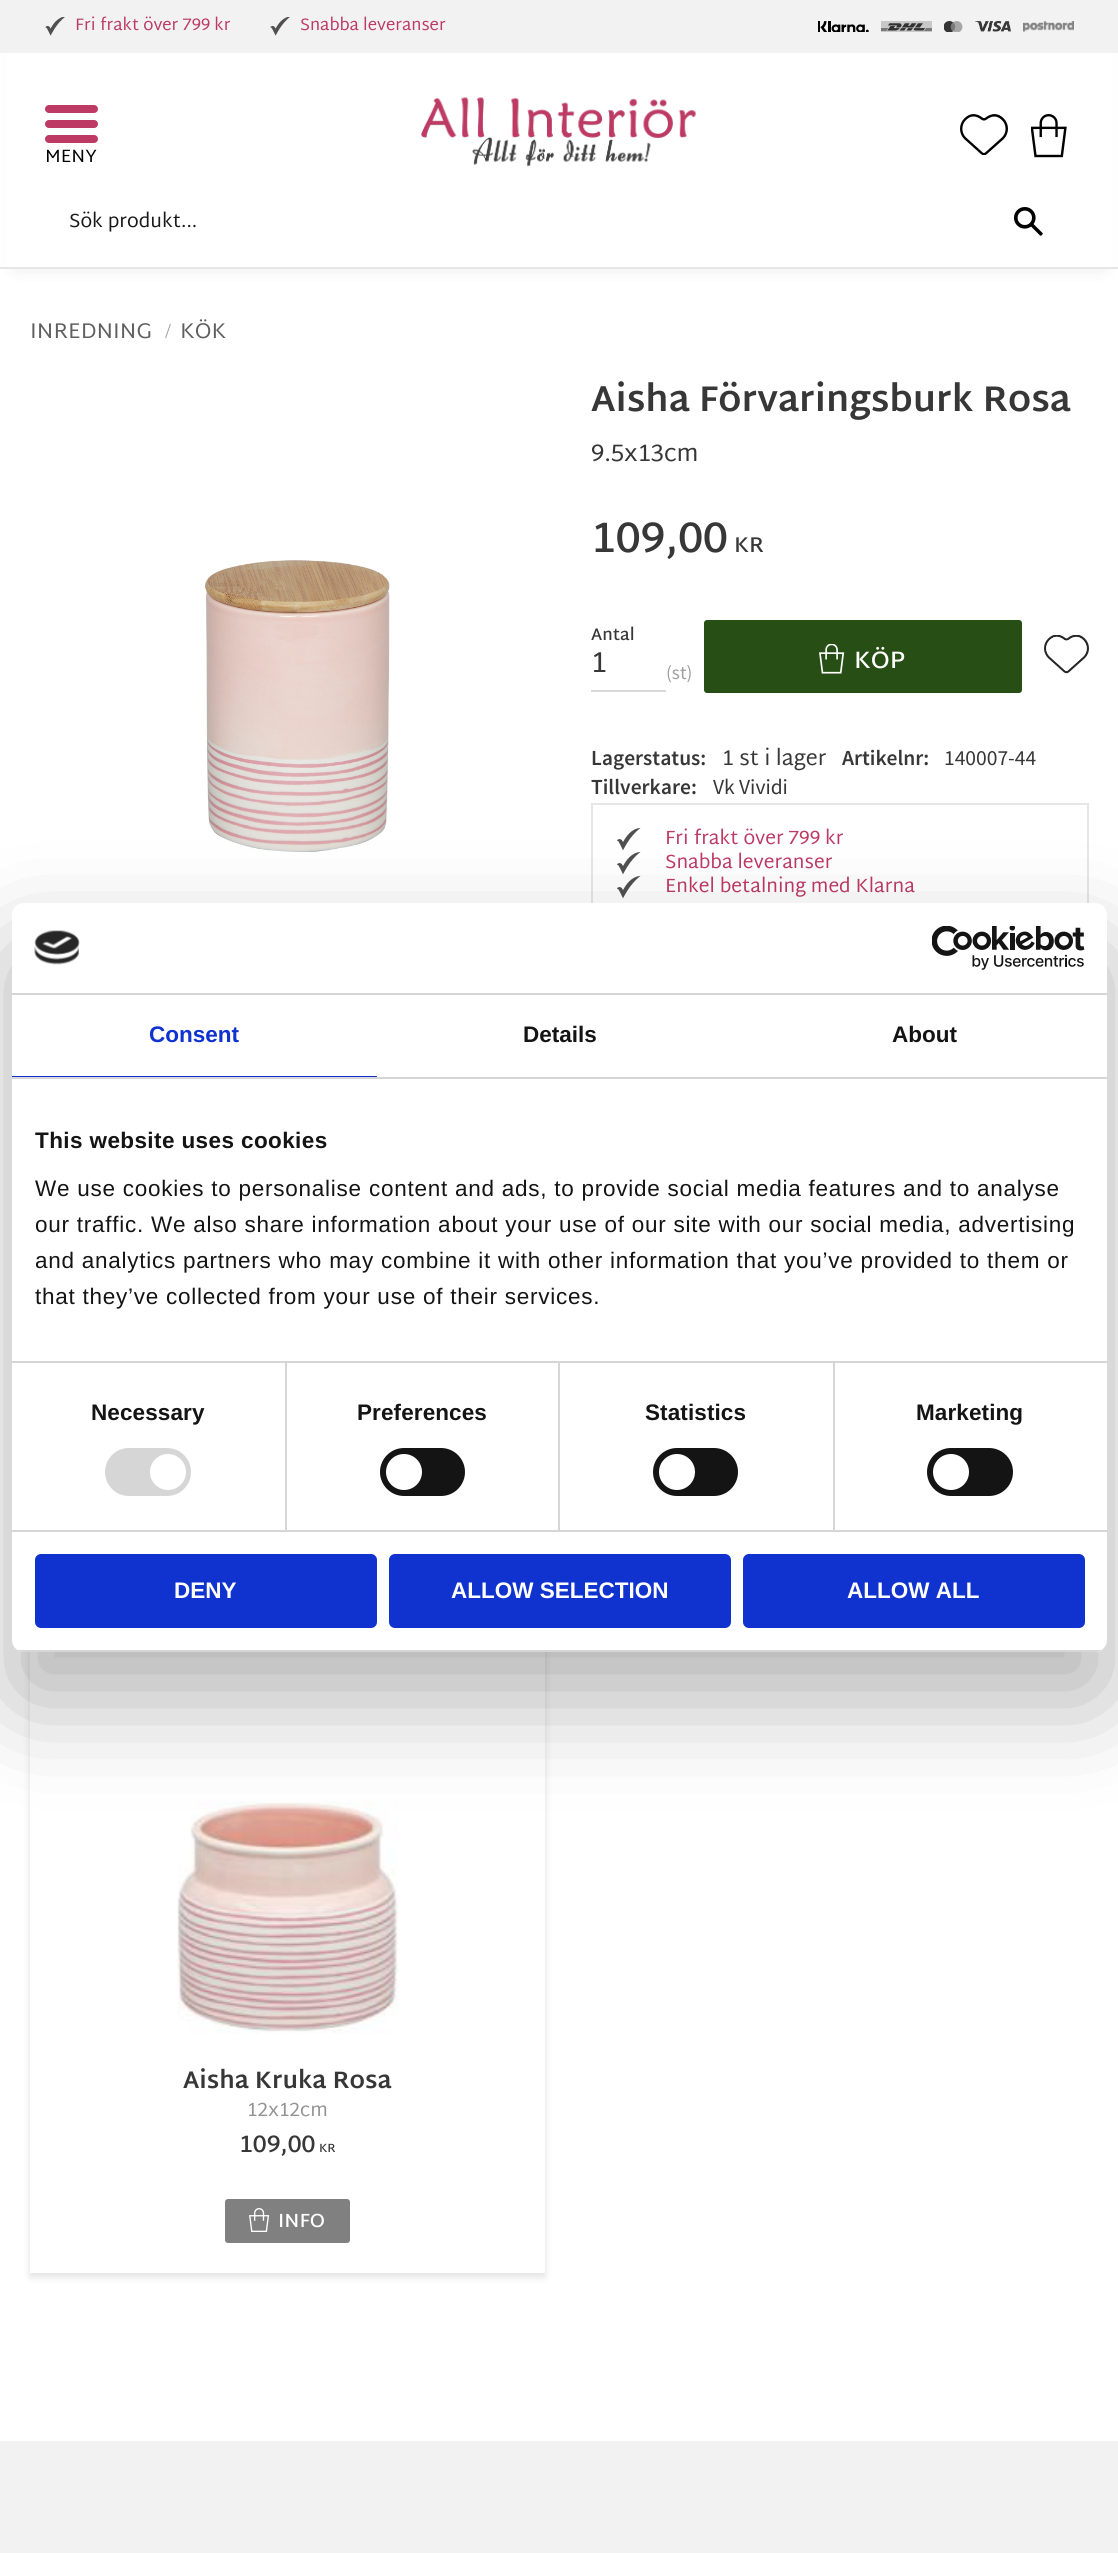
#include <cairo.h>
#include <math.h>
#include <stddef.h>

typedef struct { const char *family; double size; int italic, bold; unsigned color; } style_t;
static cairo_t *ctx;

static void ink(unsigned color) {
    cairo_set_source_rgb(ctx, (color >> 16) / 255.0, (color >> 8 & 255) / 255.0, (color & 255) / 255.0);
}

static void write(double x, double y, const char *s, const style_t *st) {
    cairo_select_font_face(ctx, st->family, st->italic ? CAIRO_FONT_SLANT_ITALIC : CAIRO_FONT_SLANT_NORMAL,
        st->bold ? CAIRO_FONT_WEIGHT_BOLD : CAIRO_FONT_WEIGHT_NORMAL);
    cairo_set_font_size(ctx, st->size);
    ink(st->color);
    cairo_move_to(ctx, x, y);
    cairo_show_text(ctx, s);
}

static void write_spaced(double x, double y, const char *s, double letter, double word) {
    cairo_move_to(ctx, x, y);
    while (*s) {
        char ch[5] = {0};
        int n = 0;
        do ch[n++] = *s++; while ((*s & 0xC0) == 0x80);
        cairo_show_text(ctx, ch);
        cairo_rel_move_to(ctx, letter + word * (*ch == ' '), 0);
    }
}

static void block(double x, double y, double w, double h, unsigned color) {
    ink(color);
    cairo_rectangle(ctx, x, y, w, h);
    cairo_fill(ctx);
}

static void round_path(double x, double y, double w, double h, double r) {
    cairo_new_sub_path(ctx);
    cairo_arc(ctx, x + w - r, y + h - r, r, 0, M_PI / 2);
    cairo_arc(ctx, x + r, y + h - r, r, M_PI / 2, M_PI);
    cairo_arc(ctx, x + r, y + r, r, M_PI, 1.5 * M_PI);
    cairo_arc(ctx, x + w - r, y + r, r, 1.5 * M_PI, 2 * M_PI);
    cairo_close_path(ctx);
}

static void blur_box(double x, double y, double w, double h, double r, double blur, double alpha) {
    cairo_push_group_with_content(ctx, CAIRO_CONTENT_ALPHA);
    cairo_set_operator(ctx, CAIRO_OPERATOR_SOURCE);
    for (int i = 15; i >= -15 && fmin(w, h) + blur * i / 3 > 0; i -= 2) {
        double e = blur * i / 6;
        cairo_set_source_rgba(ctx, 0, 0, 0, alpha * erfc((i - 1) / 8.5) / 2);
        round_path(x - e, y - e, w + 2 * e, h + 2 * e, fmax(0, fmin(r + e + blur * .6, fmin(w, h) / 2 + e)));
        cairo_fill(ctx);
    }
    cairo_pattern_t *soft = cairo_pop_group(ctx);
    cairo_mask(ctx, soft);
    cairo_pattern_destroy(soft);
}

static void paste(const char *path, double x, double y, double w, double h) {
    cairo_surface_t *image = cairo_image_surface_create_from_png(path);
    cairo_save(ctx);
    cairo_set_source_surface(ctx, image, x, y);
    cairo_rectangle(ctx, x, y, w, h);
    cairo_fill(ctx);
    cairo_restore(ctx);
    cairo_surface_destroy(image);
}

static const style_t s1 = {"Martel Sans", 16.75, 0, 0, 0xbd3a64};
static const style_t s2 = {"Martel Sans", 19.25, 0, 0, 0x1a1a1a};
static const style_t s3 = {"Martel Sans", 18, 0, 0, 0x000000};
static const style_t s4 = {"Martel Sans", 21.5, 0, 0, 0x5f5f5f};
static const style_t s5 = {"Liberation Serif", 21.5, 0, 0, 0x9f9f9f};
static const style_t s6 = {"Martel Sans", 36, 0, 1, 0x373737};
static const style_t s7 = {"Martel Sans", 24, 0, 0, 0x373737};
static const style_t s8 = {"Martel Sans SemiBold", 43, 0, 0, 0x373737};
static const style_t s9 = {"Martel Sans SemiBold", 21.5, 0, 0, 0x373737};
static const style_t s10 = {"Martel Sans SemiBold", 16.75, 0, 0, 0x373737};
static const style_t s11 = {"Martel Sans", 29, 0, 0, 0x373737};
static const style_t s12 = {"Source Sans Pro", 19.25, 0, 0, 0x9f9f9f};
static const style_t s13 = {"Martel Sans SemiBold", 24, 0, 0, 0xffffff};
static const style_t s14 = {"Source Sans Pro SemiBold", 21.5, 0, 0, 0x373737};
static const style_t s15 = {"Martel Sans", 21.5, 0, 0, 0x373737};
static const style_t s16 = {"Source Sans Pro", 21.5, 0, 0, 0x373737};
static const style_t s17 = {"Martel Sans", 19.25, 0, 0, 0xbd3a64};
static const style_t s18 = {"Martel Sans", 24, 0, 1, 0x373737};
static const style_t s19 = {"Martel Sans", 19.25, 0, 0, 0x949494};
static const style_t s20 = {"Martel Sans SemiBold", 24, 0, 0, 0x373737};
static const style_t s21 = {"Martel Sans SemiBold", 12, 0, 0, 0x373737};
static const style_t s22 = {"Martel Sans SemiBold", 19.25, 0, 0, 0xffffff};
static const style_t s23 = {"Liberation Sans", 22.5, 0, 1, 0x1032cf};
static const style_t s24 = {"Liberation Sans", 22.5, 0, 1, 0x141414};
static const style_t s25 = {"Liberation Sans", 22.5, 0, 1, 0xffffff};

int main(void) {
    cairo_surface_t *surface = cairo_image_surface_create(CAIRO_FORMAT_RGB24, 1118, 2553);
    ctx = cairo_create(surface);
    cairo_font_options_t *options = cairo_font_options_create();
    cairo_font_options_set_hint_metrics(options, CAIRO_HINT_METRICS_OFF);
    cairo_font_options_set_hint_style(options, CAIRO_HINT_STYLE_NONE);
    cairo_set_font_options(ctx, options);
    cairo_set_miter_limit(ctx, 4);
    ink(0xffffff);
    cairo_paint(ctx);
    ink(0x212326);
    blur_box(15, 30, 1089, 239, 0, 7.5, 0.1);
    block(6, 53, 1107, 214, 0xffffff);
    block(0, 267, 1118, 2, 0xe6e6e6);
    block(0, 0, 1118, 53, 0xf2f2f2);
    paste("pic1.png", 45, 17, 20, 19);
    write(75, 30, "Fri frakt över 799 kr", &s1);
    paste("pic1.png", 270, 17, 20, 19);
    write(300, 30, "Snabba leveranser", &s1);
    paste("pic2.png", 818, 21, 51, 11);
    paste("pic3.png", 881, 21, 51, 11);
    paste("pic4.png", 944, 21, 19, 11);
    paste("pic5.png", 975, 21, 36, 11);
    paste("pic6.png", 1023, 21, 51, 11);
    paste("pic7.png", 421, 97, 276, 70);
    paste("pic8.png", 960, 114, 48, 41);
    paste("pic9.png", 1031, 114, 36, 44);
    write(69, 227, "Sök produkt...", &s2);
    paste("pic10.png", 1014, 207, 29, 29);
    ink(0xbd3a64);
    round_path(45, 120, 53, 8, 4);
    cairo_fill(ctx);
    round_path(45, 105, 53, 8, 4);
    cairo_fill(ctx);
    round_path(45, 135, 53, 8, 4);
    cairo_fill(ctx);
    write(45, 162, "MENY", &s3);
    write(30, 338, "INREDNING", &s4);
    write(165, 338, "/", &s5);
    write(180, 338, "KÖK", &s4);
    write(591, 411, "Aisha Förvaringsburk Rosa", &s6);
    write(591, 461, "9.5x13cm", &s7);
    paste("pic11.png", 205, 560, 185, 292);
    write(591, 552, "109,00", &s8);
    write(734, 552, "KR", &s9);
    write(591, 640, "Antal", &s10);
    block(591, 690, 75, 2, 0xd9d9d9);
    write(591, 672, "1", &s11);
    write(666, 679, "(st)", &s12);
    ink(0x274f15);
    round_path(704, 620, 318, 73, 3);
    cairo_fill(ctx);
    paste("pic12.png", 819, 644, 26, 30);
    write(854, 668, "KÖP", &s13);
    paste("pic13.png", 1044, 635, 45, 39);
    write(591, 765, "Lagerstatus:", &s14);
    write(722, 765, "1 st i lager", &s15);
    write(842, 765, "Artikelnr:", &s14);
    write(944, 765, "140007-44", &s16);
    write(591, 794, "Tillverkare:", &s14);
    write(713, 794, "Vk Vividi", &s16);
    cairo_rectangle(ctx, 592, 804, 496, 121);
    ink(0xe6e6e6);
    cairo_stroke(ctx);
    paste("pic14.png", 617, 828, 24, 23);
    write(665, 844, "Fri frakt över 799 kr", &s17);
    paste("pic14.png", 617, 852, 24, 23);
    write(665, 868, "Snabba leveranser", &s17);
    paste("pic14.png", 617, 876, 24, 23);
    write(665, 892, "Enkel betalning med Klarna", &s17);
    ink(0x000000);
    blur_box(30, 1559, 515, 718, 0, 4, 0.12);
    block(30, 1652, 515, 621, 0xffffff);
    paste("pic15.png", 177, 1801, 222, 233);
    write(183, 2088, "Aisha Kruka Rosa", &s18);
    write(247, 2116, "12x12cm", &s19);
    write(239, 2152, "109,00", &s20);
    write(319, 2152, "KR", &s21);
    ink(0x808080);
    round_path(225, 2199, 125, 44, 3);
    cairo_fill(ctx);
    paste("pic16.png", 249, 2208, 21, 24);
    write(278, 2227, "INFO", &s22);
    block(0, 2441, 1118, 112, 0xf2f2f2);
    ink(0x000000);
    blur_box(12, 951, 1095, 749, 12, 51, 0.3);
    ink(0xffffff);
    round_path(12, 903, 1095, 749, 12);
    cairo_fill(ctx);
    block(12, 993, 1095, 2, 0xd6d6d6);
    paste("pic17.png", 34, 930, 46, 35);
    paste("pic18.png", 932, 926, 153, 44);
    block(12, 1077, 1095, 2, 0xd6d6d6);
    block(12, 1076, 365, 1, 0x1032cf);
    write(149, 1042, "Consent", &s23);
    write(523, 1042, "Details", &s24);
    write(892, 1042, "About", &s24);
    block(285, 1362, 2, 168, 0xd6d6d6);
    block(558, 1362, 2, 168, 0xd6d6d6);
    block(833, 1362, 2, 168, 0xd6d6d6);
    block(12, 1361, 1095, 2, 0xd6d6d6);
    ink(0x141414);
    write_spaced(35, 1148, "This website uses cookies", 0.4, 0);
    cairo_select_font_face(ctx, "Liberation Sans", CAIRO_FONT_SLANT_NORMAL, CAIRO_FONT_WEIGHT_NORMAL);
    write_spaced(35, 1196, "We use cookies to personalise content and ads, to provide social media features and to analyse", 0.75, 0);
    write_spaced(35, 1232, "our traffic. We also share information about your use of our site with our social media, advertising", 0.75, 0);
    write_spaced(35, 1268, "and analytics partners who may combine it with other information that you’ve provided to them or", 0.75, 0);
    write_spaced(35, 1304, "that they’ve collected from your use of their services.", 0.75, 0);
    block(12, 1530, 1095, 2, 0xd6d6d6);
    cairo_select_font_face(ctx, "Liberation Sans", CAIRO_FONT_SLANT_NORMAL, CAIRO_FONT_WEIGHT_BOLD);
    ink(0x141414);
    write_spaced(91, 1420, "Necessary", 0.1, 0);
    ink(0xd6d6d6);
    round_path(105, 1448, 86, 48, 24);
    cairo_fill(ctx);
    ink(0xffffff);
    cairo_arc(ctx, 168, 1472, 18, 0, 2 * M_PI);
    cairo_fill(ctx);
    ink(0x141414);
    write_spaced(357, 1420, "Preferences", 0.1, 0);
    round_path(380, 1448, 85, 48, 24);
    cairo_fill(ctx);
    ink(0xffffff);
    cairo_arc(ctx, 404, 1472, 18, 0, 2 * M_PI);
    cairo_fill(ctx);
    ink(0x141414);
    write_spaced(645, 1420, "Statistics", 0.1, 0);
    round_path(653, 1448, 85, 48, 24);
    cairo_fill(ctx);
    ink(0xffffff);
    cairo_arc(ctx, 677, 1472, 18, 0, 2 * M_PI);
    cairo_fill(ctx);
    ink(0x141414);
    write_spaced(916, 1420, "Marketing", 0.1, 0);
    round_path(927, 1448, 86, 48, 24);
    cairo_fill(ctx);
    ink(0xffffff);
    cairo_arc(ctx, 951, 1472, 18, 0, 2 * M_PI);
    cairo_fill(ctx);
    cairo_save(ctx);
    round_path(12, 903, 1095, 749, 12);
    cairo_clip(ctx);
    block(12, 1650, 1095, 2, 0xd6d6d6);
    cairo_restore(ctx);
    ink(0x1032cf);
    round_path(36.5, 1555.5, 339, 71, 4.5);
    cairo_fill_preserve(ctx);
    cairo_set_line_width(ctx, 3);
    cairo_stroke(ctx);
    write(174, 1598, "DENY", &s25);
    ink(0x1032cf);
    round_path(390.5, 1555.5, 339, 71, 4.5);
    cairo_fill_preserve(ctx);
    cairo_stroke(ctx);
    write(451, 1598, "ALLOW SELECTION", &s25);
    ink(0x1032cf);
    round_path(744.5, 1555.5, 339, 71, 4.5);
    cairo_fill_preserve(ctx);
    cairo_stroke(ctx);
    write(847, 1598, "ALLOW ALL", &s25);
    cairo_surface_write_to_png(surface, "screenshot.png");
    cairo_font_options_destroy(options);
    cairo_destroy(ctx);
    cairo_surface_destroy(surface);
    return 0;
}
